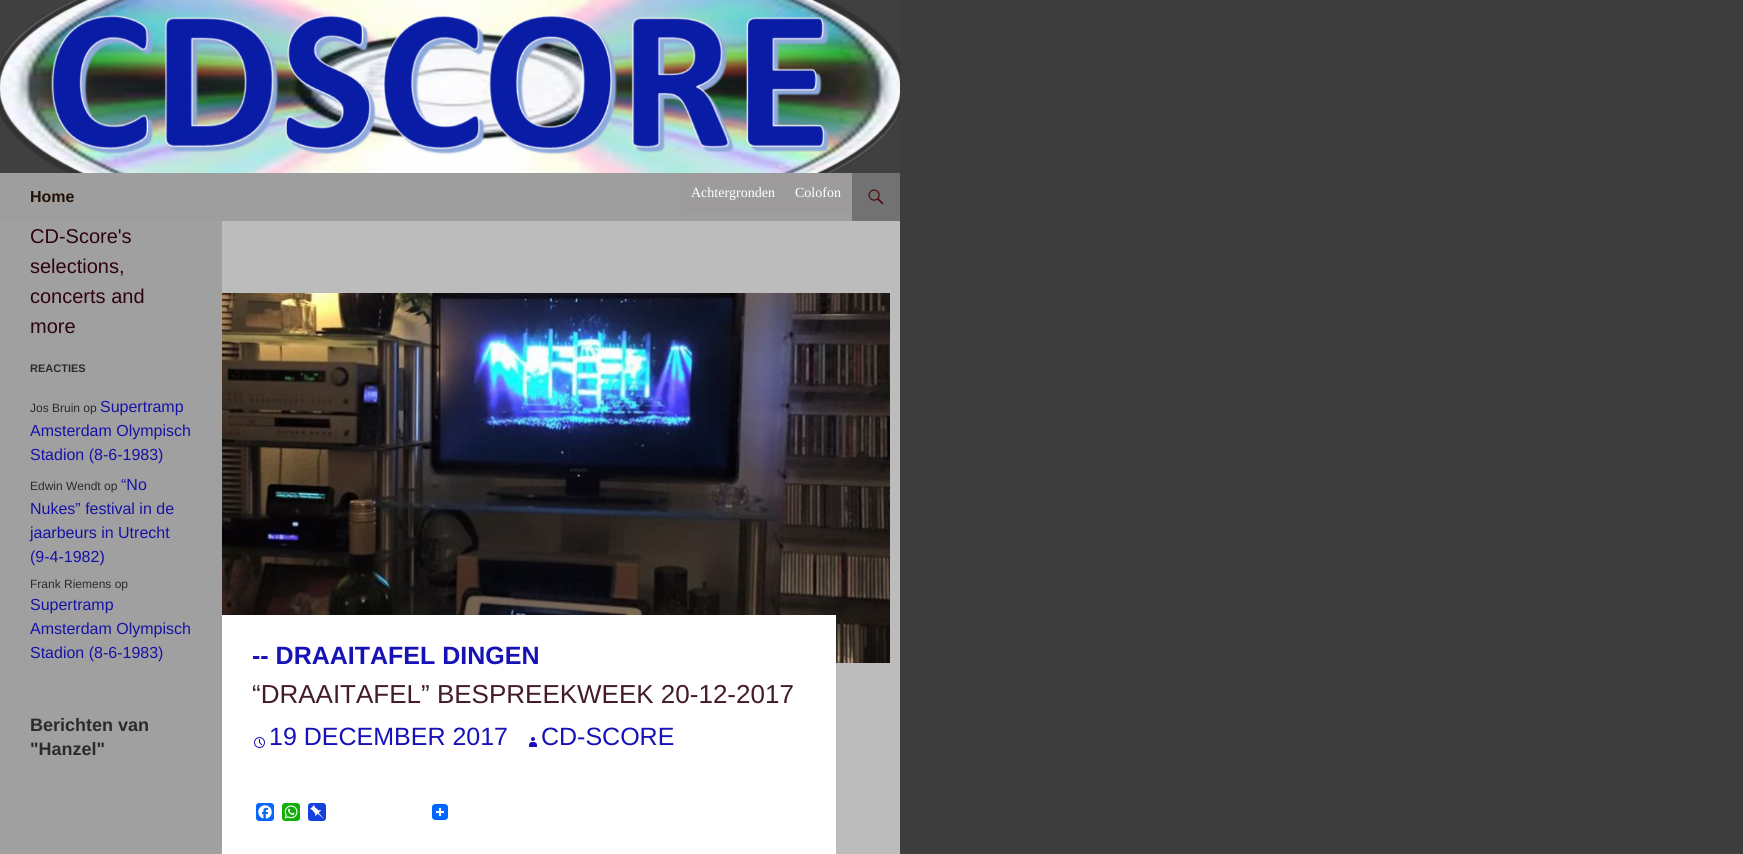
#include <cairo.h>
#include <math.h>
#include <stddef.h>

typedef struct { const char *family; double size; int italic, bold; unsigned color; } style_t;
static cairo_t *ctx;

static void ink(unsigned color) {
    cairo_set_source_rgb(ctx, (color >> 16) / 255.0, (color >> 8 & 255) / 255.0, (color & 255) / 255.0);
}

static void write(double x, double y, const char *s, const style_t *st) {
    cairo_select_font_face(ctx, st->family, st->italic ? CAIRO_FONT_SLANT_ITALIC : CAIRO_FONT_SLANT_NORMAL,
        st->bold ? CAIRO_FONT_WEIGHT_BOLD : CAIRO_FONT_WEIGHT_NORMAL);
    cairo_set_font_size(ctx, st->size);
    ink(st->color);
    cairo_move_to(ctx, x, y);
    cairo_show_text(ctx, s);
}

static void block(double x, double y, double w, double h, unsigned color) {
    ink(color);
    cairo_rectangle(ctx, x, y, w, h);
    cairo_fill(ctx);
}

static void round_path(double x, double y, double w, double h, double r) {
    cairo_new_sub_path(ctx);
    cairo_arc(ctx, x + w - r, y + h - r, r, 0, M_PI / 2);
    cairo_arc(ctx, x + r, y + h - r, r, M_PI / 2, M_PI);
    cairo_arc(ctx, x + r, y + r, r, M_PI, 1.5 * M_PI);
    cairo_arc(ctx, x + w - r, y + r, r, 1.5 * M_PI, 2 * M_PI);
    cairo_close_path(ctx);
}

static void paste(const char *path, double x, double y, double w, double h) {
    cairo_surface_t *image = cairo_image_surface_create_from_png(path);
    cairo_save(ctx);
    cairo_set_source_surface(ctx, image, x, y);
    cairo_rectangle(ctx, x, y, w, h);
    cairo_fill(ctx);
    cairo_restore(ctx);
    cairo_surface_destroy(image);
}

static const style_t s1 = {"Liberation Sans", 16, 0, 1, 0x231104};
static const style_t s2 = {"Liberation Serif", 14, 0, 0, 0xffffff};
static const style_t s3 = {"Liberation Sans", 20, 0, 0, 0x2d030e};
static const style_t s4 = {"Liberation Sans", 11, 0, 1, 0x2b2b2b};
static const style_t s5 = {"Liberation Sans", 12, 0, 0, 0x2b2b2b};
static const style_t s6 = {"Liberation Sans", 16, 0, 0, 0x1712a5};
static const style_t s7 = {"Liberation Sans", 18, 0, 1, 0x2b2b2b};
static const style_t s8 = {"Liberation Sans", 25, 0, 1, 0x1712b7};
static const style_t s9 = {"Liberation Sans", 26, 0, 0, 0x441c26};
static const style_t s10 = {"Liberation Sans", 25, 0, 0, 0x1712b7};

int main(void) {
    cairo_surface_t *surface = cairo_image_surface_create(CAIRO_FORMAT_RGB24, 1743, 854);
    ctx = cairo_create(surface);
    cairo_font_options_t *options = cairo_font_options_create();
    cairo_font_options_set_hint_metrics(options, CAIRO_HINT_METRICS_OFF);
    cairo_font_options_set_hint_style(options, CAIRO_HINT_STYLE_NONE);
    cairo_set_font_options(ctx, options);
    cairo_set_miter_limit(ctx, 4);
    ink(0x3e3d3d);
    cairo_paint(ctx);
    block(222, 221, 678, 633, 0xbcbcbc);
    paste("pic1.png", 0, 0, 900, 173);
    block(0, 173, 852, 48, 0x9e9e9e);
    write(30, 202, "Home", &s1);
    block(681, 173, 170, 40, 0x9d9b9b);
    write(691, 197, "Achtergronden", &s2);
    write(795, 197, "Colofon", &s2);
    block(852, 173, 48, 48, 0x727272);
    paste("pic2.png", 868, 189, 16, 16);
    block(0, 221, 222, 633, 0xa0a0a0);
    write(30, 243, "CD-Score's", &s3);
    write(30, 273, "selections,", &s3);
    write(30, 303, "concerts and", &s3);
    write(30, 333, "more", &s3);
    write(30, 372, "REACTIES", &s4);
    write(30, 412, "Jos Bruin op", &s5);
    write(100, 412, "Supertramp", &s6);
    write(30, 436, "Amsterdam Olympisch", &s6);
    write(30, 460, "Stadion (8-6-1983)", &s6);
    write(30, 490, "Edwin Wendt op", &s5);
    write(121, 490, "“No", &s6);
    write(30, 514, "Nukes” festival in de", &s6);
    write(30, 538, "jaarbeurs in Utrecht", &s6);
    write(30, 562, "(9-4-1982)", &s6);
    write(30, 588, "Frank Riemens op", &s5);
    write(30, 610, "Supertramp", &s6);
    write(30, 634, "Amsterdam Olympisch", &s6);
    write(30, 658, "Stadion (8-6-1983)", &s6);
    write(30, 731, "Berichten van", &s7);
    write(30, 755, "\"Hanzel\"", &s7);
    paste("pic3.png", 222, 293, 668, 370);
    block(222, 615, 614, 159, 0xffffff);
    write(252, 664, "-- DRAAITAFEL DINGEN", &s8);
    write(252, 703, "“DRAAITAFEL” BESPREEKWEEK 20-12-2017", &s9);
    paste("pic4.png", 254, 737, 11, 11);
    write(269, 745, "19 DECEMBER 2017", &s10);
    paste("pic5.png", 529, 737, 8, 10);
    write(541, 745, "CD-SCORE", &s10);
    block(222, 774, 614, 80, 0xffffff);
    ink(0x0866ff);
    round_path(256, 803, 18, 18, 3);
    cairo_fill(ctx);
    paste("pic6.png", 258, 805, 14, 14);
    ink(0x12af0a);
    round_path(282, 803, 18, 18, 3);
    cairo_fill(ctx);
    paste("pic7.png", 284, 805, 14, 14);
    ink(0x1341de);
    round_path(308, 803, 18, 18, 3);
    cairo_fill(ctx);
    paste("pic8.png", 309, 804, 15, 15);
    paste("pic9.png", 432, 804, 16, 16);
    cairo_surface_write_to_png(surface, "screenshot.png");
    cairo_font_options_destroy(options);
    cairo_destroy(ctx);
    cairo_surface_destroy(surface);
    return 0;
}
